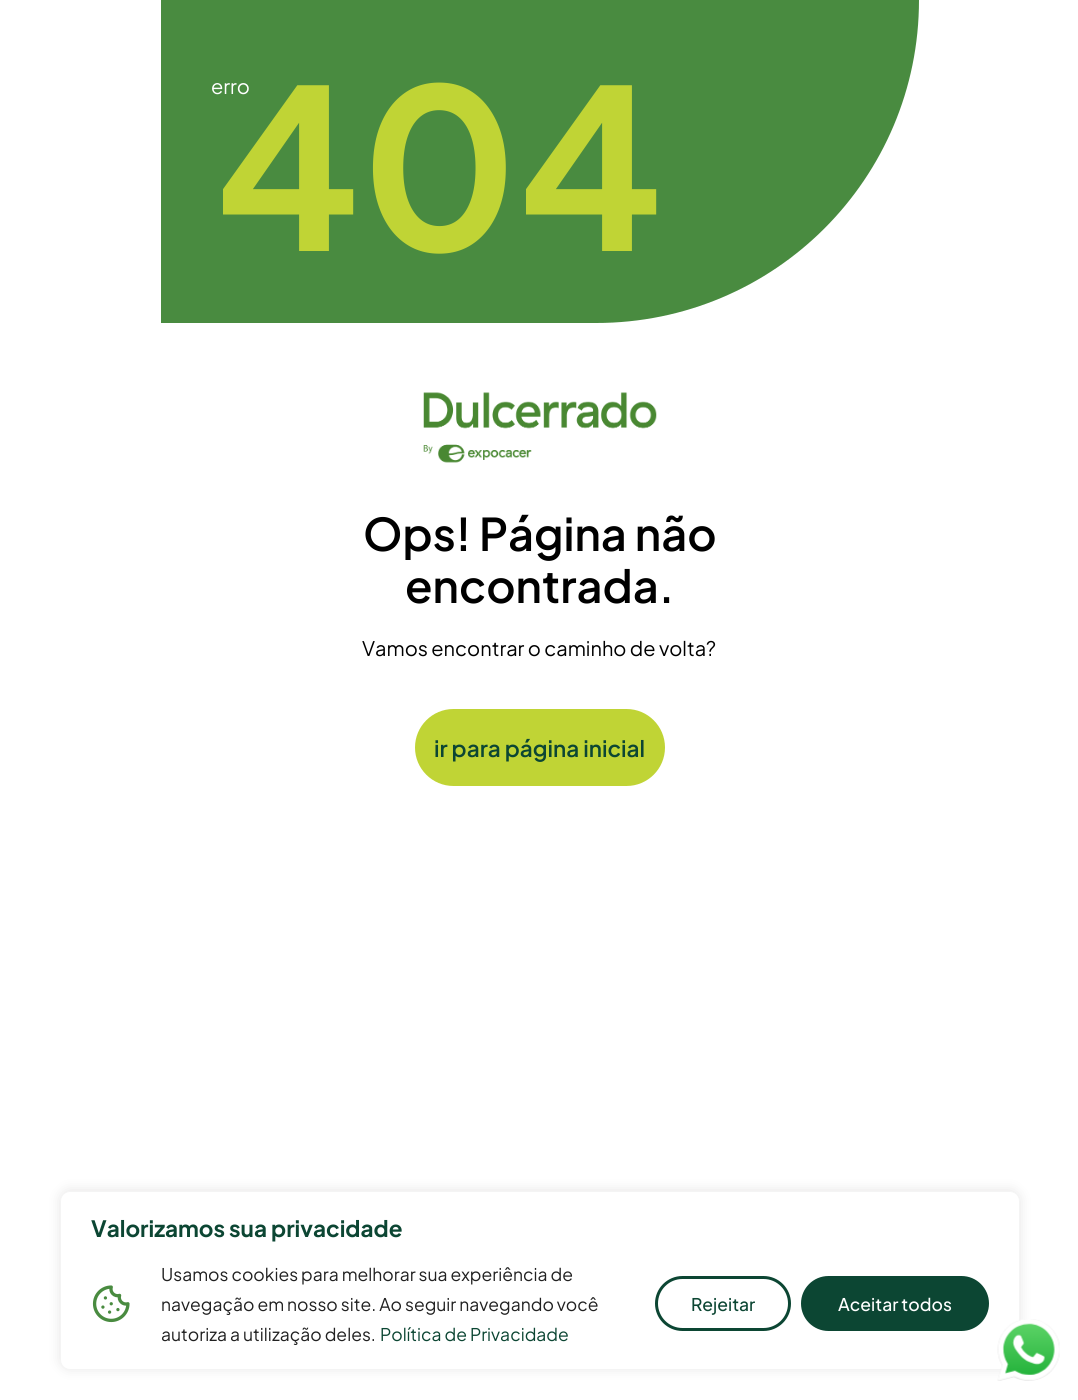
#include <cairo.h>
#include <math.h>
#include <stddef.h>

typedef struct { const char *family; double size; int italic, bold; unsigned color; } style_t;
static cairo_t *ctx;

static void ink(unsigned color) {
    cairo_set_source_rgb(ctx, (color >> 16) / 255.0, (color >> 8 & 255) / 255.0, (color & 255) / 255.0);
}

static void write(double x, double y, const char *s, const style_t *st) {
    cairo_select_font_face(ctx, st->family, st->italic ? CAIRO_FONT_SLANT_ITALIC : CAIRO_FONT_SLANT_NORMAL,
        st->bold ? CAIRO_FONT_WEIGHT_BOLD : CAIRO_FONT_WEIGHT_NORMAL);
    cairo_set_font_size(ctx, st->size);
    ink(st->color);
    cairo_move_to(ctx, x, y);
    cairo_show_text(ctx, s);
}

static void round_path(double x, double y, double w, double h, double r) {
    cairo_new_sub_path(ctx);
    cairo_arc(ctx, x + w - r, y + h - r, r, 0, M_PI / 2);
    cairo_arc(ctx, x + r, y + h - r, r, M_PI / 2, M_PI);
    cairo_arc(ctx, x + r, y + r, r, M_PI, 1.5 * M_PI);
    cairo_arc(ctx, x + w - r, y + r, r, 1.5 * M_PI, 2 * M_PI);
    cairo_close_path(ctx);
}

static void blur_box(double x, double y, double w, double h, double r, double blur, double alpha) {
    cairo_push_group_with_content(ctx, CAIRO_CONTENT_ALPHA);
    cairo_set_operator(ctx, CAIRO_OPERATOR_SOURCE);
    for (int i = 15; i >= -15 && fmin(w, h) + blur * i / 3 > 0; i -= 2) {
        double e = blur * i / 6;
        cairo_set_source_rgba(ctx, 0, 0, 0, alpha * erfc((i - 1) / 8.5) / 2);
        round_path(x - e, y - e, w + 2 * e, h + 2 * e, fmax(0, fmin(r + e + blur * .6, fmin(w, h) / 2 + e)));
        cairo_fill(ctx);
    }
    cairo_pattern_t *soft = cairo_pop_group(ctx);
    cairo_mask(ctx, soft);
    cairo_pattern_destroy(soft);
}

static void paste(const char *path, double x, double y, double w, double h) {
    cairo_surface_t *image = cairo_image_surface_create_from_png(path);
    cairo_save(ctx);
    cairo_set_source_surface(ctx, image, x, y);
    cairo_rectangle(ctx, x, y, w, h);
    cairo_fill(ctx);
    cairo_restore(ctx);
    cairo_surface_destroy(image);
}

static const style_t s1 = {"Plus Jakarta Sans", 20, 0, 0, 0xffffff};
static const style_t s2 = {"Plus Jakarta Sans", 222.5, 0, 1, 0xc0d435};
static const style_t s3 = {"Plus Jakarta Sans SemiBold", 45, 0, 0, 0x000000};
static const style_t s4 = {"Plus Jakarta Sans", 20, 0, 0, 0x000000};
static const style_t s5 = {"Plus Jakarta Sans SemiBold", 22.5, 0, 0, 0x0c4633};
static const style_t s6 = {"Plus Jakarta Sans", 22.5, 0, 1, 0x0c4633};
static const style_t s7 = {"Plus Jakarta Sans", 17.5, 0, 0, 0x212121};
static const style_t s8 = {"Plus Jakarta Sans", 17.5, 0, 0, 0x0c4633};
static const style_t s9 = {"Plus Jakarta Sans Medium", 17.5, 0, 0, 0x0c4633};
static const style_t s10 = {"Plus Jakarta Sans Medium", 17.5, 0, 0, 0xffffff};

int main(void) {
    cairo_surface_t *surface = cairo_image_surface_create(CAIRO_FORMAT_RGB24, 1078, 1400);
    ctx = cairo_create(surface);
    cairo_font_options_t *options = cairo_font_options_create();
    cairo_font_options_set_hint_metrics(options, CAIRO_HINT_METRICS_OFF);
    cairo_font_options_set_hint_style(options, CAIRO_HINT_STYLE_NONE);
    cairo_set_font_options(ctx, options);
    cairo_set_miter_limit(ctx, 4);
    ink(0xffffff);
    cairo_paint(ctx);
    ink(0x498b40);
    cairo_new_path(ctx);
    cairo_move_to(ctx, 161, 0);
    cairo_line_to(ctx, 919, 0);
    cairo_curve_to(ctx, 919, 178.5, 774.5, 323, 596, 323);
    cairo_line_to(ctx, 161, 323);
    cairo_close_path(ctx);
    cairo_fill(ctx);
    write(211, 94, "erro", &s1);
    write(215, 251, "404", &s2);
    paste("pic1.png", 423, 392, 234, 71);
    write(363, 551, "Ops! Página não", &s3);
    write(405, 603, "encontrada.", &s3);
    write(362, 656, "Vamos encontrar o caminho de volta?", &s4);
    ink(0xc0d435);
    round_path(415, 709, 250, 77, 38.5);
    cairo_fill(ctx);
    write(434, 757, "ir para página inicial", &s5);
    ink(0xacabab);
    blur_box(60, 1190, 960, 179, 10, 6, 0.3);
    ink(0xffffff);
    round_path(60.5, 1191.5, 959, 178, 9.5);
    cairo_fill_preserve(ctx);
    ink(0xf4f4f4);
    cairo_set_line_width(ctx, 1);
    cairo_stroke(ctx);
    write(91, 1237, "Valorizamos sua privacidade", &s6);
    paste("pic2.png", 92, 1285, 38, 38);
    write(161, 1281, "Usamos cookies para melhorar sua experiência de", &s7);
    write(161, 1311, "navegação em nosso site. Ao seguir navegando você", &s7);
    write(161, 1341, "autoriza a utilização deles.", &s7);
    write(380, 1341, "Política de Privacidade", &s8);
    round_path(656.5, 1277.5, 133, 52, 26);
    cairo_set_line_width(ctx, 3);
    cairo_stroke(ctx);
    write(691, 1311, "Rejeitar", &s9);
    round_path(802.5, 1277.5, 185, 52, 26);
    cairo_fill_preserve(ctx);
    cairo_stroke(ctx);
    write(838, 1311, "Aceitar todos", &s10);
    paste("pic3.png", 997, 1319, 63, 62);
    cairo_surface_write_to_png(surface, "screenshot.png");
    cairo_font_options_destroy(options);
    cairo_destroy(ctx);
    cairo_surface_destroy(surface);
    return 0;
}
